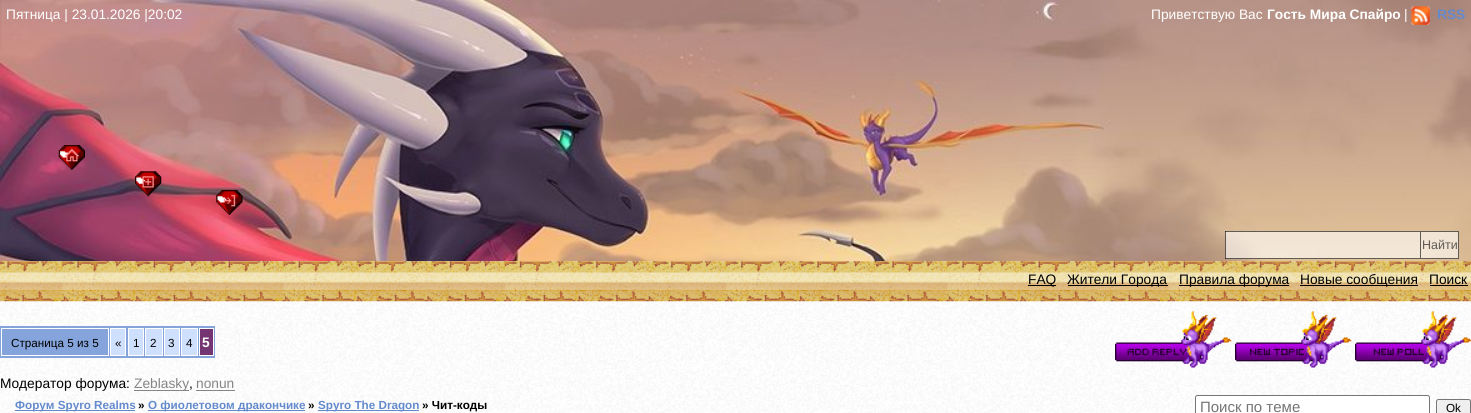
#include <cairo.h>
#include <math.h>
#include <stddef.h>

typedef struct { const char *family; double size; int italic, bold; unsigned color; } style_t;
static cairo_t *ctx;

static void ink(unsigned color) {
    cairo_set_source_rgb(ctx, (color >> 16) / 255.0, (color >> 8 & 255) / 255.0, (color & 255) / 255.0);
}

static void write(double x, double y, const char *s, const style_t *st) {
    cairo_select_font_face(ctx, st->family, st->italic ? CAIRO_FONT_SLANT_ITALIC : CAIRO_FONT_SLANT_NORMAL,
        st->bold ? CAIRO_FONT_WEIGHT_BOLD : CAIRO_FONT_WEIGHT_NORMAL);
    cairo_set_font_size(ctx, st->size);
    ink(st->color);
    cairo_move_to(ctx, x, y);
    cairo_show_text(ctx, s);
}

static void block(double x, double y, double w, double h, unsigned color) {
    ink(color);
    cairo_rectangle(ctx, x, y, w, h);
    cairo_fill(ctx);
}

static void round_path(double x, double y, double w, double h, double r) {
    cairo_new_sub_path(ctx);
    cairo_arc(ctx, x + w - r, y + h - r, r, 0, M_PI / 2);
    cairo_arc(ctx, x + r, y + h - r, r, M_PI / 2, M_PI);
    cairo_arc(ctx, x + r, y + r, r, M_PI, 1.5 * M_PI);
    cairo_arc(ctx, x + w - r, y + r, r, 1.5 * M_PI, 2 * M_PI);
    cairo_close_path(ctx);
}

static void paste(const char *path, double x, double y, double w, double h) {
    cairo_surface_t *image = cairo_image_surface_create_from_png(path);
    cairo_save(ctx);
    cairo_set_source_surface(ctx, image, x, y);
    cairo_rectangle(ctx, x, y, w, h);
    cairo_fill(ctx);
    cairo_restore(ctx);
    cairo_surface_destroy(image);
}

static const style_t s1 = {"Liberation Sans", 13.75, 0, 0, 0xffffff};
static const style_t s2 = {"Liberation Sans", 13.75, 0, 1, 0xffffff};
static const style_t s3 = {"Liberation Sans", 13.75, 0, 1, 0x648acd};
static const style_t s4 = {"Liberation Sans", 12.5, 0, 0, 0x605b55};
static const style_t s5 = {"Liberation Sans", 13.75, 0, 0, 0x000000};
static const style_t s6 = {"Liberation Sans", 11.7, 0, 0, 0x000000};
static const style_t s7 = {"Liberation Sans", 13.75, 0, 0, 0x858585};
static const style_t s8 = {"Liberation Sans", 11.7, 0, 1, 0x648acd};
static const style_t s9 = {"Liberation Sans", 11.7, 0, 1, 0x000000};
static const style_t s10 = {"Liberation Sans", 15, 0, 0, 0x757575};

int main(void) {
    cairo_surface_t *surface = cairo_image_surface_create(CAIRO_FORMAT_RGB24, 1471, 413);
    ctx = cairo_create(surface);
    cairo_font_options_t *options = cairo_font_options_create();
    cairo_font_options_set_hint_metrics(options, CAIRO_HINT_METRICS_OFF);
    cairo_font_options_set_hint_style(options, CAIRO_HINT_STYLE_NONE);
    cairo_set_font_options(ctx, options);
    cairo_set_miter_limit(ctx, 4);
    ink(0xffffff);
    cairo_paint(ctx);
    paste("pic1.png", 0, 261, 1471, 152);
    paste("pic2.png", 0, 0, 1471, 262);
    write(6, 19, "Пятница | 23.01.2026 |20:02", &s1);
    write(1151, 19, "Приветствую Вас", &s1);
    write(1267, 19, "Гость Мира Спайро", &s2);
    write(1404, 19, "|", &s1);
    paste("pic3.png", 1411, 6, 19, 19);
    write(1437, 19, "RSS", &s3);
    paste("pic4.png", 58, 145, 27, 25);
    paste("pic5.png", 135, 171, 27, 26);
    paste("pic6.png", 216, 190, 27, 25);
    cairo_set_source_rgba(ctx, 1, 1, 1, 0.6);
    cairo_rectangle(ctx, 1225, 231, 195, 28);
    cairo_fill(ctx);
    cairo_set_source_rgba(ctx, 0, 0, 0, 0.6);
    cairo_rectangle(ctx, 1225, 231, 195, 1);
    cairo_fill(ctx);
    cairo_rectangle(ctx, 1225, 258, 195, 1);
    cairo_fill(ctx);
    cairo_rectangle(ctx, 1225, 231, 1, 28);
    cairo_fill(ctx);
    cairo_set_source_rgba(ctx, 1, 1, 1, 0.6);
    cairo_rectangle(ctx, 1420, 231, 39, 28);
    cairo_fill(ctx);
    cairo_rectangle(ctx, 1420.5, 231.5, 38, 27);
    cairo_set_source_rgba(ctx, 0, 0, 0, 0.6);
    cairo_set_line_width(ctx, 1);
    cairo_stroke(ctx);
    write(1422, 249, "Найти", &s4);
    paste("pic7.png", 0, 261, 1471, 41);
    block(1028, 285, 28, 1, 0x000000);
    write(1028, 284, "FAQ", &s5);
    block(1068, 285, 100, 1, 0x000000);
    write(1067, 284, "Жители Города", &s5);
    block(1179, 285, 110, 1, 0x000000);
    write(1179, 284, "Правила форума", &s5);
    block(1300, 285, 118, 1, 0x000000);
    write(1300, 284, "Новые сообщения", &s5);
    write(1429, 284, "Поиск", &s5);
    block(1430, 285, 38, 1, 0x000000);
    block(0, 326, 215, 32, 0x85a4db);
    cairo_rectangle(ctx, 1.5, 328.5, 107, 27);
    ink(0xffffff);
    cairo_stroke(ctx);
    write(11, 347, "Страница 5 из 5", &s6);
    ink(0xcfe0ff);
    cairo_rectangle(ctx, 110.5, 328.5, 15, 27);
    cairo_fill_preserve(ctx);
    ink(0xffffff);
    cairo_stroke(ctx);
    write(115, 347, "«", &s6);
    ink(0xcfe0ff);
    cairo_rectangle(ctx, 128.5, 328.5, 15, 27);
    cairo_fill_preserve(ctx);
    ink(0xffffff);
    cairo_stroke(ctx);
    write(133, 347, "1", &s6);
    ink(0xcfe0ff);
    cairo_rectangle(ctx, 145.5, 328.5, 17, 27);
    cairo_fill_preserve(ctx);
    ink(0xffffff);
    cairo_stroke(ctx);
    write(150, 347, "2", &s6);
    ink(0xcfe0ff);
    cairo_rectangle(ctx, 164.5, 328.5, 15, 27);
    cairo_fill_preserve(ctx);
    ink(0xffffff);
    cairo_stroke(ctx);
    write(168, 347, "3", &s6);
    ink(0xcfe0ff);
    cairo_rectangle(ctx, 181.5, 328.5, 16, 27);
    cairo_fill_preserve(ctx);
    ink(0xffffff);
    cairo_stroke(ctx);
    write(186, 347, "4", &s6);
    ink(0x743572);
    cairo_rectangle(ctx, 199.5, 328.5, 14, 27);
    cairo_fill_preserve(ctx);
    ink(0xffffff);
    cairo_stroke(ctx);
    write(202, 347, "5", &s2);
    paste("pic8.png", 1115, 311, 117, 57);
    paste("pic9.png", 1235, 311, 117, 57);
    paste("pic10.png", 1355, 311, 116, 57);
    write(0, 388, "Модератор форума:", &s5);
    block(134, 390, 55, 1, 0x858585);
    write(134, 388, "Zeblasky", &s7);
    write(189, 388, ",", &s5);
    block(196, 390, 39, 1, 0x858585);
    write(196, 388, "nonun", &s7);
    block(15, 410, 120, 1, 0x648acd);
    write(15, 409, "Форум Spyro Realms", &s8);
    write(138, 409, "»", &s9);
    block(148, 410, 157, 1, 0x648acd);
    write(148, 409, "О фиолетовом дракончике", &s8);
    write(308, 409, "»", &s9);
    block(318, 410, 101, 1, 0x648acd);
    write(318, 409, "Spyro The Dragon", &s8);
    write(422, 409, "» Чит-коды", &s9);
    ink(0xffffff);
    round_path(1195.5, 395.5, 234, 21, 2);
    cairo_fill_preserve(ctx);
    ink(0x767676);
    cairo_stroke(ctx);
    write(1200, 412, "Поиск по теме", &s10);
    ink(0xefefef);
    round_path(1436.5, 399.5, 34, 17, 2);
    cairo_fill_preserve(ctx);
    ink(0x767676);
    cairo_stroke(ctx);
    write(1446, 412, "Ok", &s6);
    cairo_surface_write_to_png(surface, "screenshot.png");
    cairo_font_options_destroy(options);
    cairo_destroy(ctx);
    cairo_surface_destroy(surface);
    return 0;
}
